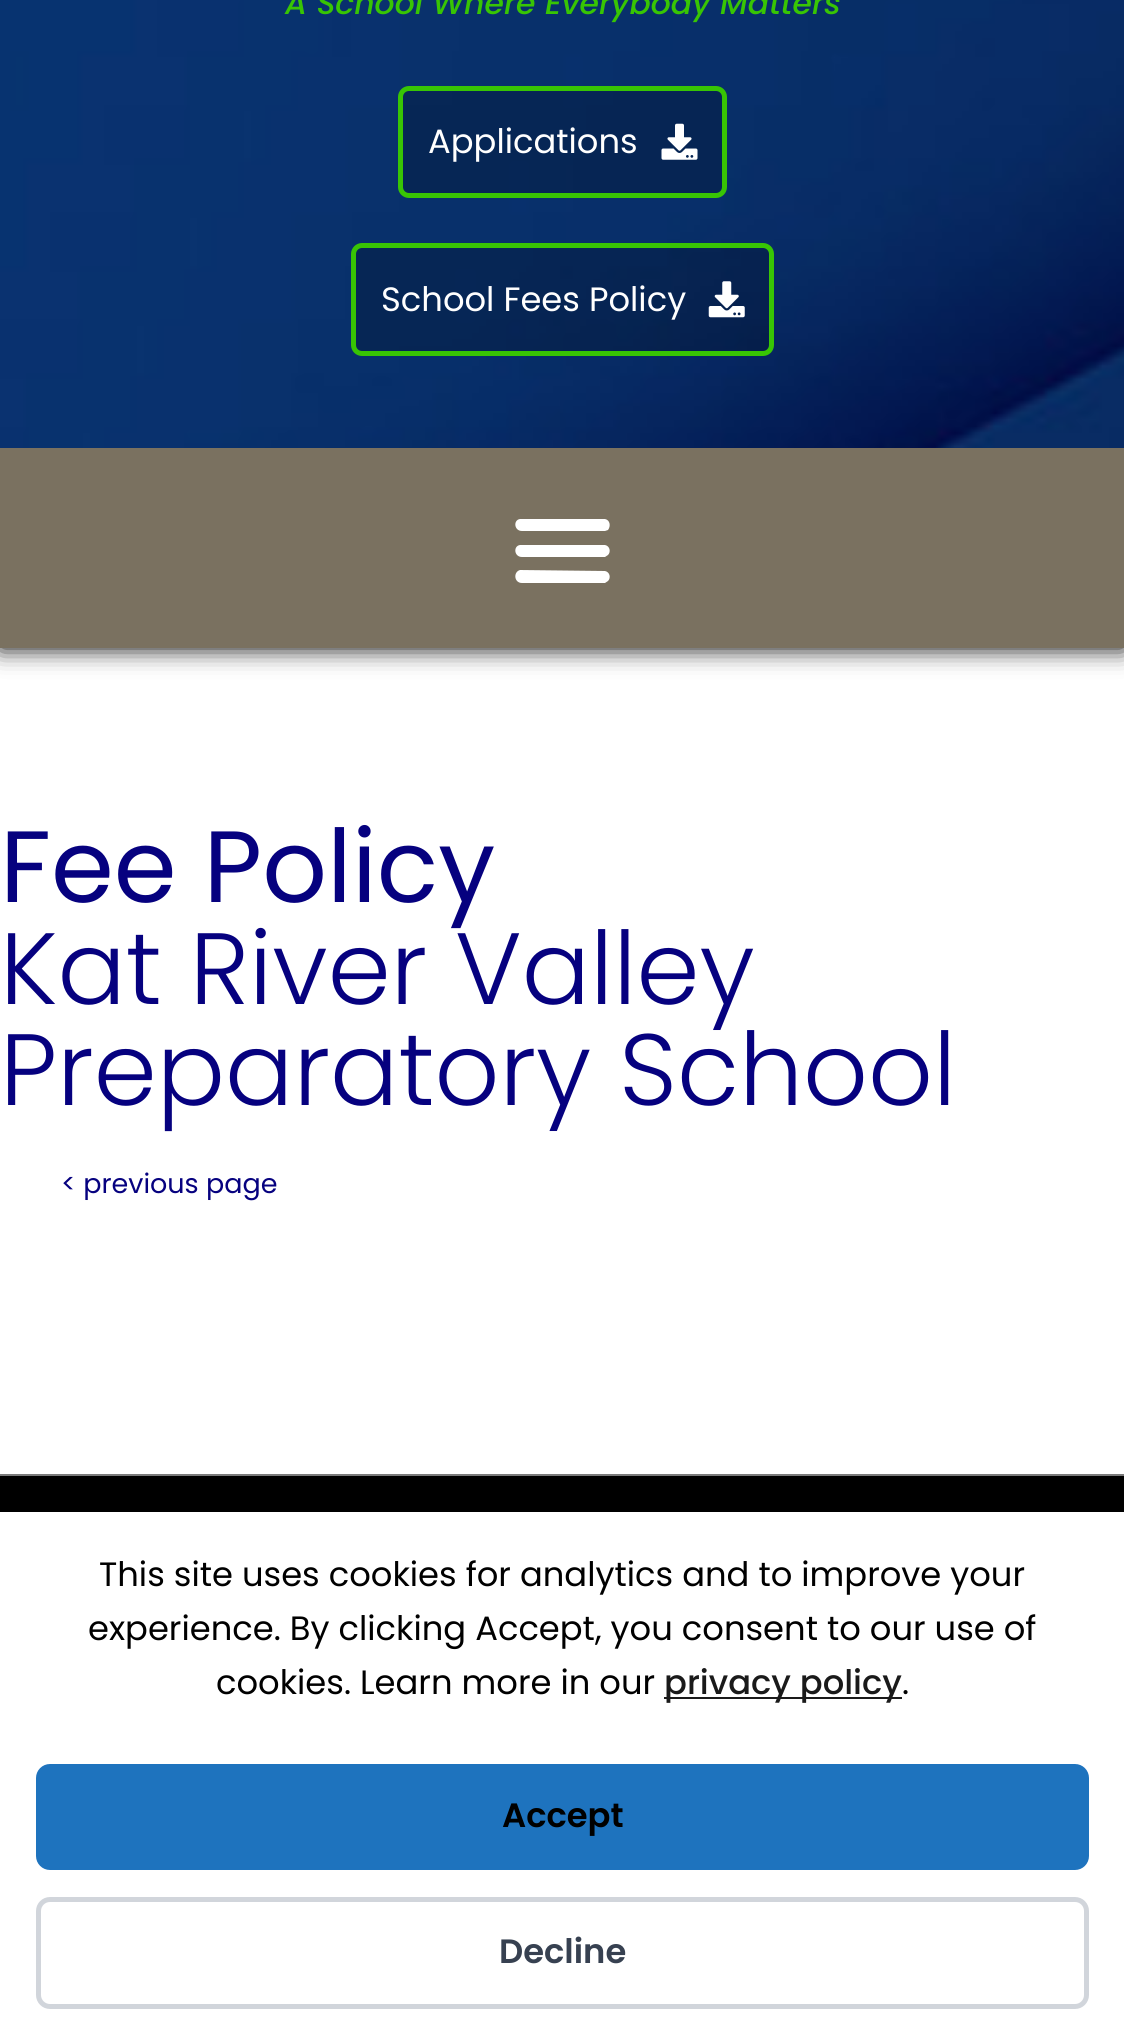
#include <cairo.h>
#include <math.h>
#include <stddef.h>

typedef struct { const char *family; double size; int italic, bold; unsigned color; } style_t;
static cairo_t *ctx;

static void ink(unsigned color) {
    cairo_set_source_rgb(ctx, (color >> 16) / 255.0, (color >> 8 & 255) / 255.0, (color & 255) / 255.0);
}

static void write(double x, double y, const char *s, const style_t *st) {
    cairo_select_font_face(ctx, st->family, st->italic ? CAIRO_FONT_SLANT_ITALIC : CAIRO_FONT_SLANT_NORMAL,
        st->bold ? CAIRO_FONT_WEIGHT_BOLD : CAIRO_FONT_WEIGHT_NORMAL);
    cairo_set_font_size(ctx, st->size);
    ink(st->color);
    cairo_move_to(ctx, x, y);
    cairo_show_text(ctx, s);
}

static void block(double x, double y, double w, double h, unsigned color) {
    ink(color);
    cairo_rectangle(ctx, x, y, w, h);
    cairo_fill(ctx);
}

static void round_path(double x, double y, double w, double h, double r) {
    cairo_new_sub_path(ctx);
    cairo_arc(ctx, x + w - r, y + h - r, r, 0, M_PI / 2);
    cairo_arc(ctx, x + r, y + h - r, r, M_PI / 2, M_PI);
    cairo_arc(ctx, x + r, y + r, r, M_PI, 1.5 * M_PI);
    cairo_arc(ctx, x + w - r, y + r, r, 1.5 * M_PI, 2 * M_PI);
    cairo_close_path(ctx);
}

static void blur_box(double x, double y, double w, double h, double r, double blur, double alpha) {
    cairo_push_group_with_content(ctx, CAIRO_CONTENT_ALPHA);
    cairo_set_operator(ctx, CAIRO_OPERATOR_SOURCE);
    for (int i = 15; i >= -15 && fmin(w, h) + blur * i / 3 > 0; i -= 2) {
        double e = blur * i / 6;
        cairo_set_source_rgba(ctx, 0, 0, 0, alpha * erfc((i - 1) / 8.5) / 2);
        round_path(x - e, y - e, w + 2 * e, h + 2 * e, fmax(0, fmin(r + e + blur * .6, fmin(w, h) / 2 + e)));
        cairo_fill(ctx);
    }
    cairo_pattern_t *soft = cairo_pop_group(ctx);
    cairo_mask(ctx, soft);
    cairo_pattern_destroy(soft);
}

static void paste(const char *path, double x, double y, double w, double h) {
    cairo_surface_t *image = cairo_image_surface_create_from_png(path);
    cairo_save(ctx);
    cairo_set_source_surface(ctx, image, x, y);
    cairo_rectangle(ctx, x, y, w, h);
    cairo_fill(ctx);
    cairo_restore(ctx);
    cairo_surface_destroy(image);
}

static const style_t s1 = {"Poppins Medium", 31.5, 1, 0, 0x38c504};
static const style_t s2 = {"Poppins", 33.75, 0, 0, 0xffffff};
static const style_t s3 = {"Poppins", 101.25, 0, 0, 0x06017f};
static const style_t s4 = {"Poppins Light", 101.25, 0, 0, 0x06017f};
static const style_t s5 = {"Poppins", 27, 0, 0, 0x06017f};
static const style_t s6 = {"Poppins", 33.75, 0, 0, 0x000000};
static const style_t s7 = {"Poppins Medium", 33.75, 0, 0, 0x1a1a1a};
static const style_t s8 = {"Poppins SemiBold", 33.75, 0, 0, 0x000000};
static const style_t s9 = {"Poppins SemiBold", 33.75, 0, 0, 0x374151};

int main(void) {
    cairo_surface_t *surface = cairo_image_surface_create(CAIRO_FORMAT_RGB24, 1124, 2044);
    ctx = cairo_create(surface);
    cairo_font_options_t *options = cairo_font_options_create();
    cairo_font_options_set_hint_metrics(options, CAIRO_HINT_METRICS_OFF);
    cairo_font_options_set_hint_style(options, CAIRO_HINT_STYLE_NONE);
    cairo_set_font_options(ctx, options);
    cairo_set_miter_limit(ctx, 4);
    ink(0xffffff);
    cairo_paint(ctx);
    ink(0x000000);
    blur_box(0, 448, 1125, 200, 0, 12.5, 1);
    paste("pic1.png", 0, 0, 1124, 448);
    write(285, 14, "A School Where Everybody Matters", &s1);
    cairo_set_source_rgba(ctx, 0, 0, 0, 0.21);
    round_path(400.5, 88.5, 324, 107, 8.5);
    cairo_fill_preserve(ctx);
    ink(0x38c504);
    cairo_set_line_width(ctx, 5);
    cairo_stroke(ctx);
    write(428, 153, "Applications", &s2);
    paste("pic2.png", 661, 123, 37, 37);
    cairo_set_source_rgba(ctx, 0, 0, 0, 0.21);
    round_path(353.5, 245.5, 418, 108, 8.5);
    cairo_fill_preserve(ctx);
    ink(0x38c504);
    cairo_stroke(ctx);
    write(381, 311, "School Fees Policy", &s2);
    paste("pic3.png", 708, 281, 37, 37);
    block(0, 448, 1124, 200, 0x7a7160);
    ink(0xffffff);
    cairo_new_path(ctx);
    cairo_move_to(ctx, 522, 531);
    cairo_line_to(ctx, 605, 531);
    cairo_line_to(ctx, 608, 530);
    cairo_curve_to(ctx, 611, 526, 610, 520, 605, 519);
    cairo_line_to(ctx, 520, 519);
    cairo_curve_to(ctx, 513, 520, 514, 531, 522, 531);
    cairo_close_path(ctx);
    cairo_move_to(ctx, 522, 557);
    cairo_line_to(ctx, 605, 557);
    cairo_line_to(ctx, 608, 555);
    cairo_curve_to(ctx, 611, 552, 610, 546, 605, 545);
    cairo_line_to(ctx, 520, 545);
    cairo_curve_to(ctx, 513, 546, 514, 557, 522, 557);
    cairo_close_path(ctx);
    cairo_move_to(ctx, 522, 583);
    cairo_line_to(ctx, 605, 583);
    cairo_line_to(ctx, 608, 581);
    cairo_curve_to(ctx, 611, 578, 610, 572, 605, 571);
    cairo_line_to(ctx, 520, 570);
    cairo_curve_to(ctx, 513, 572, 514, 583, 522, 583);
    cairo_close_path(ctx);
    cairo_fill(ctx);
    write(0, 902, "Fee Policy", &s3);
    write(0, 1004, "Kat River Valley", &s4);
    write(0, 1105, "Preparatory School", &s4);
    write(61, 1193, "< previous page", &s5);
    block(0, 1476, 1124, 36, 0x000000);
    block(0, 1474, 1124, 2, 0x7a7a7a);
    write(99, 1586, "This site uses cookies for analytics and to improve your", &s6);
    write(88, 1640, "experience. By clicking Accept, you consent to our use of", &s6);
    write(216, 1694, "cookies. Learn more in our", &s6);
    block(664, 1697, 238, 2, 0x1a1a1a);
    write(664, 1694, "privacy policy", &s7);
    write(902, 1694, ".", &s6);
    ink(0x1e73be);
    round_path(36, 1764, 1053, 106, 14);
    cairo_fill(ctx);
    write(502, 1827, "Accept", &s8);
    round_path(38.5, 1899.5, 1048, 107, 11.5);
    ink(0xd1d5db);
    cairo_stroke(ctx);
    write(499, 1963, "Decline", &s9);
    cairo_surface_write_to_png(surface, "screenshot.png");
    cairo_font_options_destroy(options);
    cairo_destroy(ctx);
    cairo_surface_destroy(surface);
    return 0;
}
